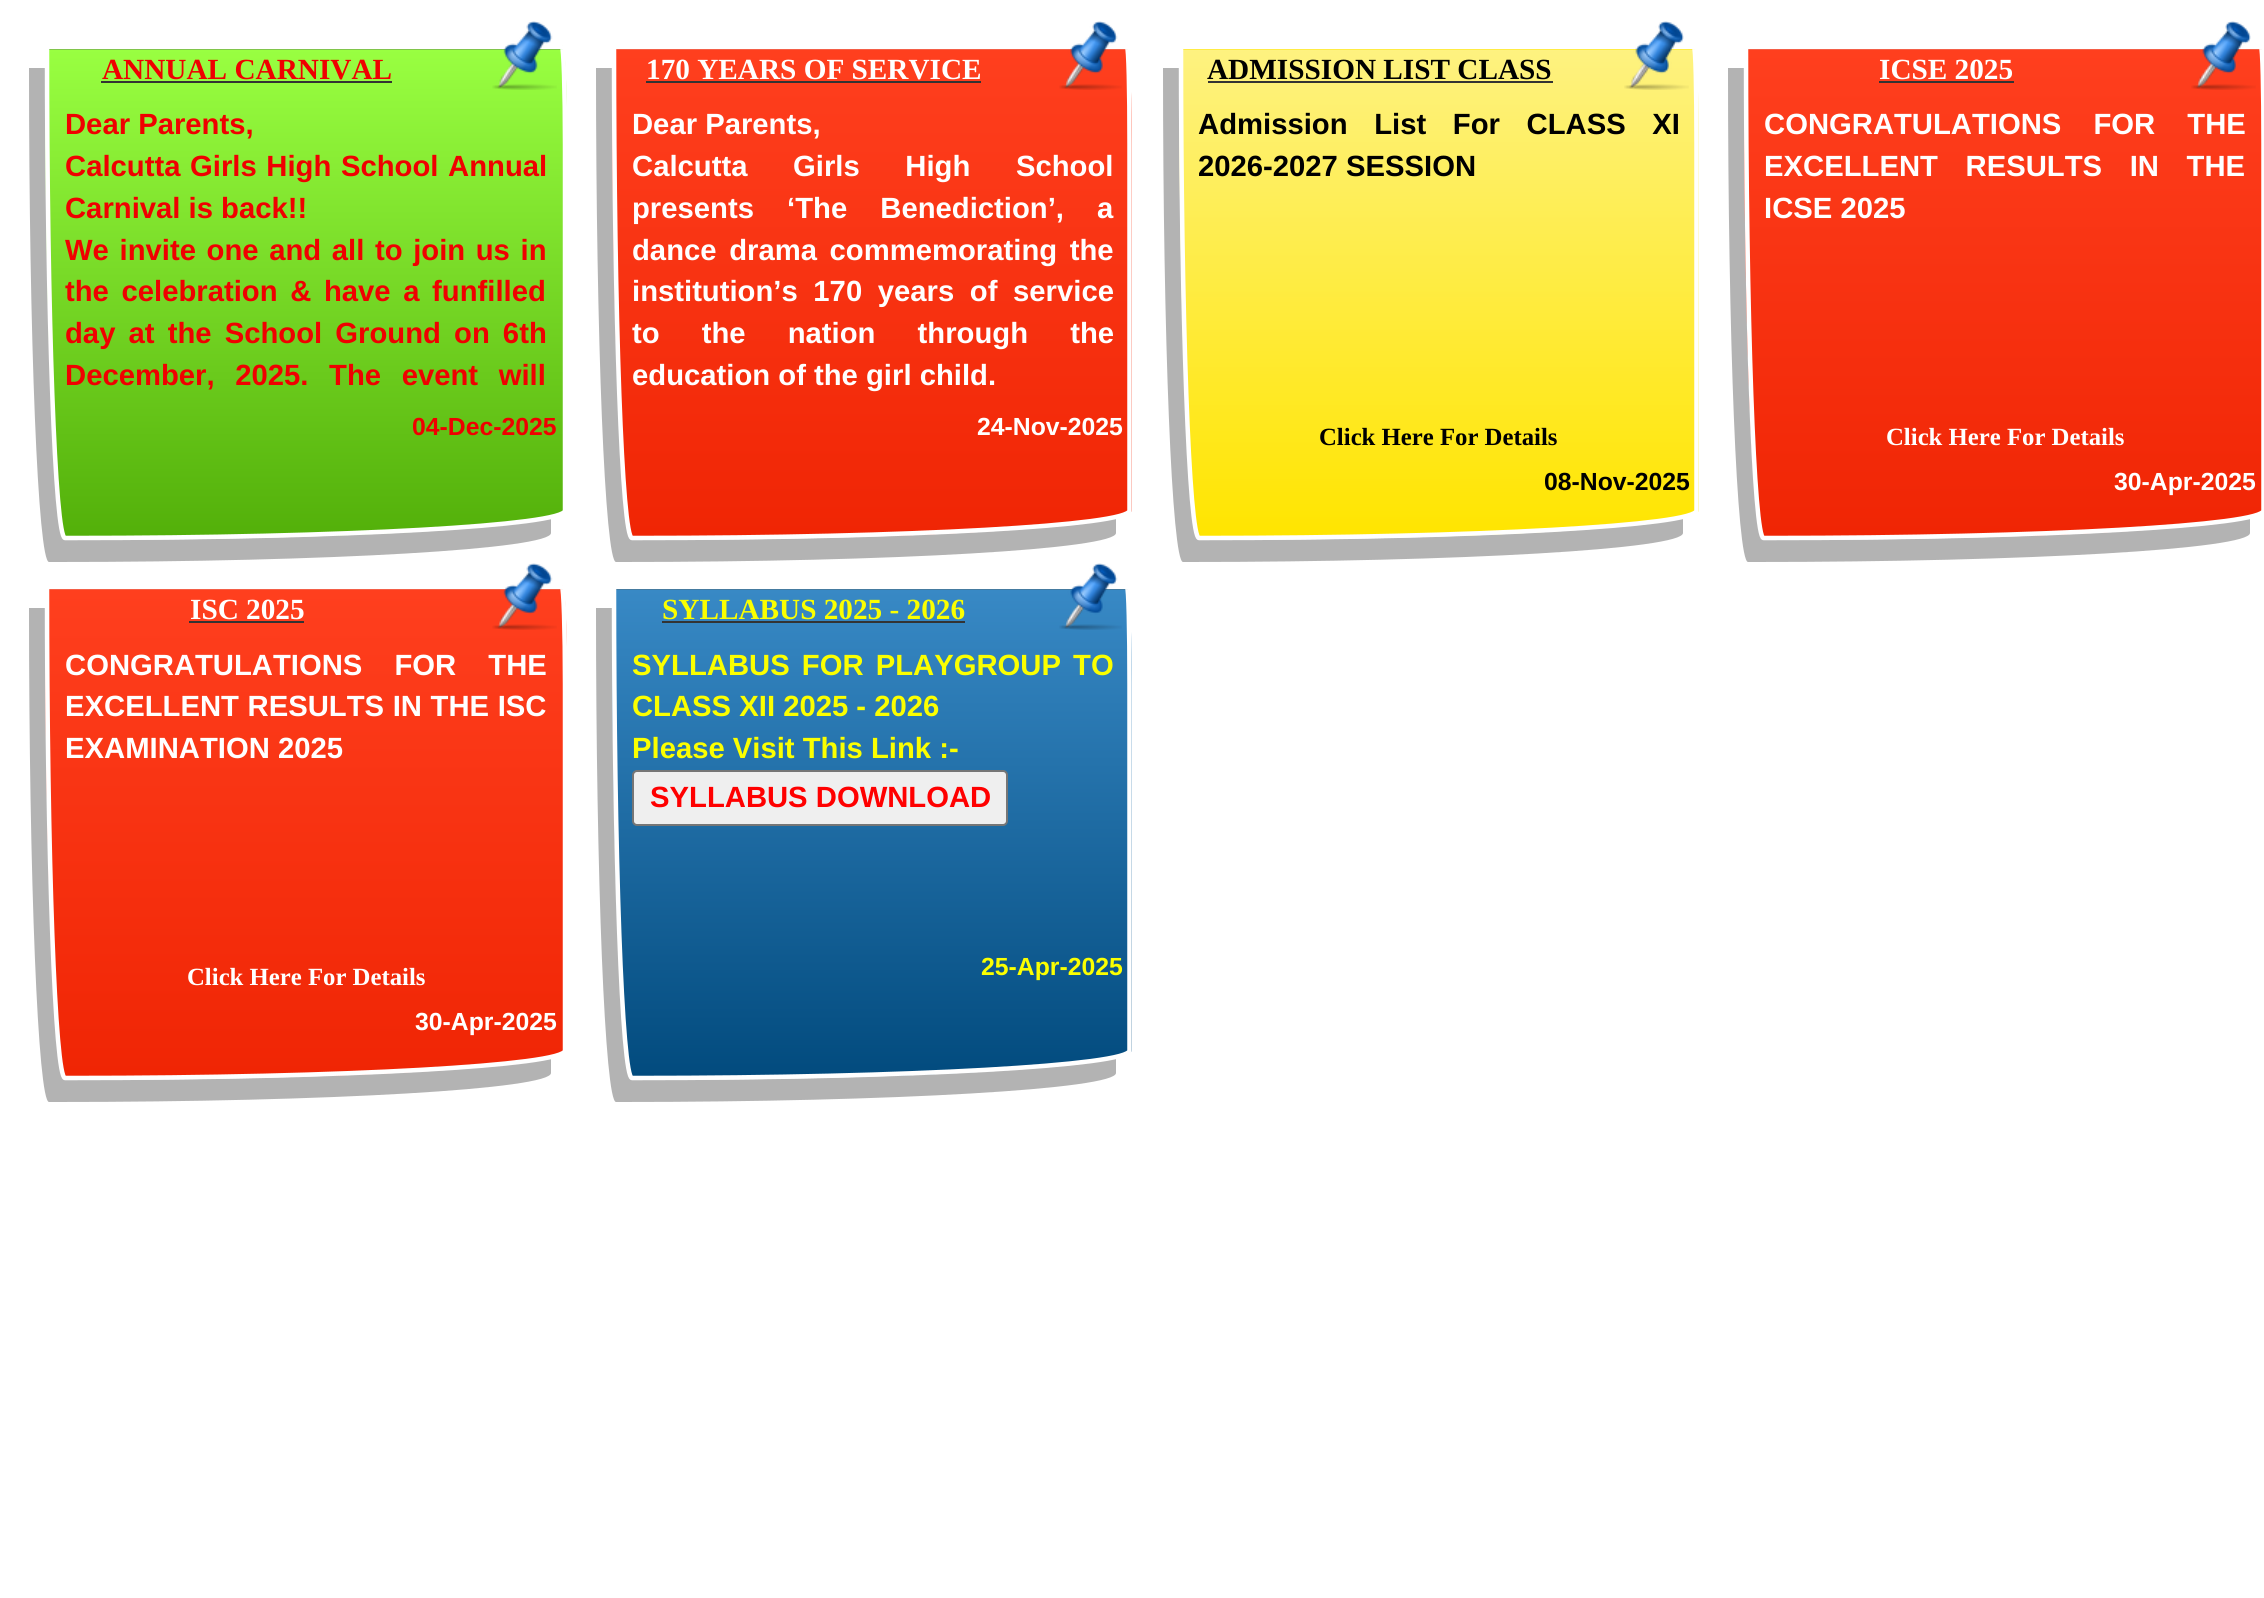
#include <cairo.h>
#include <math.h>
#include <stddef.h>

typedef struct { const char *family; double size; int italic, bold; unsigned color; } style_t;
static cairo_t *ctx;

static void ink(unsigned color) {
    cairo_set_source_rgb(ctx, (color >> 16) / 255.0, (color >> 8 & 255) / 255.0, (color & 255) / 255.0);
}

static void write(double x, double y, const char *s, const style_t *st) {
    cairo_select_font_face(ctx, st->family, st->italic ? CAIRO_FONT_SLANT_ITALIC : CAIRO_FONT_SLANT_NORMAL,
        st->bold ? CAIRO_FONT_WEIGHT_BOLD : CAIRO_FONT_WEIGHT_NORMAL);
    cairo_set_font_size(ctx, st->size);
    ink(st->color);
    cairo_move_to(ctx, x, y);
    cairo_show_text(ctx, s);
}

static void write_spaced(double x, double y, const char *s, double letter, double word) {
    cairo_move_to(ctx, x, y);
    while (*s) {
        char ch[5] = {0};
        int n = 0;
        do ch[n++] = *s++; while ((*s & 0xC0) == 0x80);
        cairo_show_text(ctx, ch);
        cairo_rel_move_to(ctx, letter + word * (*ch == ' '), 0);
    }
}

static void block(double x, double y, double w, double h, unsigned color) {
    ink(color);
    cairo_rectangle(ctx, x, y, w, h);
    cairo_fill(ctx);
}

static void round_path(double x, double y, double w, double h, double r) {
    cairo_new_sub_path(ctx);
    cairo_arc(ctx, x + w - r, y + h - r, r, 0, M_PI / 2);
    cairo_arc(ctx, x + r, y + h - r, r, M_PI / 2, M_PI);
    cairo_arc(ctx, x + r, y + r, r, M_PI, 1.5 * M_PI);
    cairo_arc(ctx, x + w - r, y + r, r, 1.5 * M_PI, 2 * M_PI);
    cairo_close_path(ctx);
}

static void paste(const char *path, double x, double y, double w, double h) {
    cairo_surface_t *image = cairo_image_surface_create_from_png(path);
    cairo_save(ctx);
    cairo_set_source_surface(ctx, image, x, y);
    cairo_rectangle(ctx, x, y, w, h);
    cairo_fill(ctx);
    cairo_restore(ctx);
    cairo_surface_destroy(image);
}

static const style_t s1 = {"Liberation Serif", 29.25, 0, 1, 0xf00000};
static const style_t s2 = {"Liberation Sans", 29.25, 0, 1, 0xf00000};
static const style_t s3 = {"Liberation Sans", 24.75, 0, 1, 0xf00000};
static const style_t s4 = {"Liberation Serif", 29.25, 0, 1, 0xffffff};
static const style_t s5 = {"Liberation Sans", 29.25, 0, 1, 0xffffff};
static const style_t s6 = {"Liberation Sans", 24.75, 0, 1, 0xffffff};
static const style_t s7 = {"Liberation Serif", 29.25, 0, 1, 0x000000};
static const style_t s8 = {"Liberation Sans", 29.25, 0, 1, 0x000000};
static const style_t s9 = {"Liberation Serif", 24.75, 0, 1, 0x000000};
static const style_t s10 = {"Liberation Sans", 24.75, 0, 1, 0x000000};
static const style_t s11 = {"Liberation Serif", 24.75, 0, 1, 0xffffff};
static const style_t s12 = {"Liberation Serif", 29.25, 0, 1, 0xfbff00};
static const style_t s13 = {"Liberation Sans", 29.25, 0, 1, 0xfbff00};
static const style_t s14 = {"Liberation Sans", 29.25, 0, 1, 0xff0000};
static const style_t s15 = {"Liberation Sans", 24.75, 0, 1, 0xfbff00};

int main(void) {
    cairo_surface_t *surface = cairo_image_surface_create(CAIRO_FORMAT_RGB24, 2264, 1598);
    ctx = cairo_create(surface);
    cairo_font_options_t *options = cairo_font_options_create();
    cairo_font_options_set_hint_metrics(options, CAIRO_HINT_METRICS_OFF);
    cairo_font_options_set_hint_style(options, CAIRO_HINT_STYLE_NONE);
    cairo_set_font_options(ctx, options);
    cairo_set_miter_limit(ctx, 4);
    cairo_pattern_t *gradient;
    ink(0xffffff);
    cairo_paint(ctx);
    ink(0xb3b3b3);
    cairo_new_path(ctx);
    cairo_move_to(ctx, 29, 68);
    cairo_curve_to(ctx, 29, 341, 38, 562, 49, 562);
    cairo_line_to(ctx, 56, 562);
    cairo_curve_to(ctx, 330, 562, 551, 549, 551, 533);
    cairo_line_to(ctx, 551, 518);
    cairo_curve_to(ctx, 496, 531, 302, 540, 72, 540);
    cairo_line_to(ctx, 65, 540);
    cairo_curve_to(ctx, 54, 540, 46, 331, 45, 68);
    cairo_close_path(ctx);
    cairo_fill(ctx);
    gradient = cairo_pattern_create_linear(306, -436, 306, 50);
    cairo_pattern_add_color_stop_rgba(gradient, 0, 0.6, 1, 0.255, 1);
    cairo_pattern_add_color_stop_rgba(gradient, 1, 0.325, 0.69, 0.039, 1);
    cairo_set_source(ctx, gradient);
    cairo_pattern_destroy(gradient);
    cairo_new_path(ctx);
    cairo_move_to(ctx, 45, 45);
    cairo_line_to(ctx, 562, 45);
    cairo_curve_to(ctx, 563, 45, 563, 47, 564, 50);
    cairo_line_to(ctx, 45, 50);
    cairo_close_path(ctx);
    cairo_fill(ctx);
    gradient = cairo_pattern_create_linear(306, 49, 306, 536);
    cairo_pattern_add_color_stop_rgba(gradient, 0, 0.6, 1, 0.255, 1);
    cairo_pattern_add_color_stop_rgba(gradient, 1, 0.325, 0.69, 0.039, 1);
    cairo_set_source(ctx, gradient);
    cairo_pattern_destroy(gradient);
    cairo_new_path(ctx);
    cairo_move_to(ctx, 62, 536);
    cairo_curve_to(ctx, 53, 505, 45, 300, 45, 50);
    cairo_line_to(ctx, 564, 50);
    cairo_curve_to(ctx, 566, 63, 567, 100, 567, 144);
    cairo_line_to(ctx, 567, 510);
    cairo_curve_to(ctx, 567, 521, 468, 531, 320, 536);
    cairo_close_path(ctx);
    cairo_fill(ctx);
    cairo_new_path(ctx);
    cairo_move_to(ctx, 47, 47);
    cairo_line_to(ctx, 562, 47);
    cairo_curve_to(ctx, 563.5, 47, 565, 90.5, 565, 144);
    cairo_line_to(ctx, 565, 510.5);
    cairo_curve_to(ctx, 565, 525.5, 344, 538, 72, 538);
    cairo_line_to(ctx, 65, 538);
    cairo_curve_to(ctx, 55, 538, 47, 317, 47, 45);
    cairo_close_path(ctx);
    ink(0xffffff);
    cairo_set_line_width(ctx, 4.5);
    cairo_stroke(ctx);
    write(102, 79, "ANNUAL CARNIVAL", &s1);
    block(101, 81, 291, 2, 0x333333);
    paste("pic1.png", 492, 21, 65, 69);
    write(65, 134, "Dear Parents,", &s2);
    write_spaced(65, 176, "Calcutta Girls High School Annual", 0, 1.5);
    write(65, 218, "Carnival is back!!", &s2);
    write_spaced(65, 260, "We invite one and all to join us in", 0, 2.5);
    write_spaced(65, 301, "the celebration & have a funfilled", 0, 4.5);
    write_spaced(65, 343, "day at the School Ground on 6th", 0, 5);
    write_spaced(65, 385, "December, 2025. The event will", 0, 12.5);
    write(412, 435, "04-Dec-2025", &s3);
    ink(0xb3b3b3);
    cairo_new_path(ctx);
    cairo_move_to(ctx, 596, 68);
    cairo_curve_to(ctx, 596, 341, 605, 562, 616, 562);
    cairo_line_to(ctx, 621, 562);
    cairo_curve_to(ctx, 894, 562, 1116, 549, 1116, 533);
    cairo_line_to(ctx, 1116, 518);
    cairo_curve_to(ctx, 1061, 531, 867, 540, 637, 540);
    cairo_line_to(ctx, 632, 540);
    cairo_curve_to(ctx, 621, 540, 613, 331, 612, 68);
    cairo_close_path(ctx);
    cairo_fill(ctx);
    gradient = cairo_pattern_create_linear(872, -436, 872, 50);
    cairo_pattern_add_color_stop_rgba(gradient, 0, 1, 0.247, 0.118, 1);
    cairo_pattern_add_color_stop_rgba(gradient, 1, 0.941, 0.145, 0.016, 1);
    cairo_set_source(ctx, gradient);
    cairo_pattern_destroy(gradient);
    cairo_new_path(ctx);
    cairo_move_to(ctx, 612, 45);
    cairo_line_to(ctx, 1127, 45);
    cairo_curve_to(ctx, 1127, 45, 1128, 47, 1128, 50);
    cairo_line_to(ctx, 612, 50);
    cairo_close_path(ctx);
    cairo_fill(ctx);
    gradient = cairo_pattern_create_linear(872, 49, 872, 536);
    cairo_pattern_add_color_stop_rgba(gradient, 0, 1, 0.247, 0.118, 1);
    cairo_pattern_add_color_stop_rgba(gradient, 1, 0.941, 0.145, 0.016, 1);
    cairo_set_source(ctx, gradient);
    cairo_pattern_destroy(gradient);
    cairo_new_path(ctx);
    cairo_move_to(ctx, 629, 536);
    cairo_curve_to(ctx, 620, 505, 612, 300, 612, 50);
    cairo_line_to(ctx, 1128, 50);
    cairo_curve_to(ctx, 1130, 63, 1132, 100, 1132, 144);
    cairo_line_to(ctx, 1132, 510);
    cairo_curve_to(ctx, 1132, 521, 1033, 531, 885, 536);
    cairo_close_path(ctx);
    cairo_fill(ctx);
    cairo_new_path(ctx);
    cairo_move_to(ctx, 614, 47);
    cairo_line_to(ctx, 1127, 47);
    cairo_curve_to(ctx, 1128.5, 47, 1129.5, 90.5, 1129.5, 144);
    cairo_line_to(ctx, 1129.5, 510.5);
    cairo_curve_to(ctx, 1129.5, 525.5, 909, 538, 637, 538);
    cairo_line_to(ctx, 632, 538);
    cairo_curve_to(ctx, 622, 538, 614, 317, 614, 45);
    cairo_close_path(ctx);
    ink(0xffffff);
    cairo_stroke(ctx);
    write(646, 79, "170 YEARS OF SERVICE", &s4);
    block(646, 81, 335, 2, 0x333333);
    paste("pic2.png", 1059, 21, 63, 69);
    write(632, 134, "Dear Parents,", &s5);
    write_spaced(632, 176, "Calcutta Girls High School", 0, 37.5);
    write_spaced(632, 218, "presents ‘The Benediction’, a", 0, 25);
    write_spaced(632, 260, "dance drama commemorating the", 0, 4.5);
    write_spaced(632, 301, "institution’s 170 years of service", 0, 7.5);
    write_spaced(632, 343, "to the nation through the", 0, 34);
    write(632, 385, "education of the girl child.", &s5);
    write(977, 435, "24-Nov-2025", &s6);
    ink(0xb3b3b3);
    cairo_new_path(ctx);
    cairo_move_to(ctx, 1163, 68);
    cairo_curve_to(ctx, 1163, 341, 1172, 562, 1183, 562);
    cairo_line_to(ctx, 1188, 562);
    cairo_curve_to(ctx, 1461, 562, 1683, 549, 1683, 533);
    cairo_line_to(ctx, 1683, 518);
    cairo_curve_to(ctx, 1628, 531, 1434, 540, 1204, 540);
    cairo_line_to(ctx, 1199, 540);
    cairo_curve_to(ctx, 1188, 540, 1180, 331, 1179, 68);
    cairo_close_path(ctx);
    cairo_fill(ctx);
    gradient = cairo_pattern_create_linear(1439, -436, 1439, 50);
    cairo_pattern_add_color_stop_rgba(gradient, 0, 0.996, 0.949, 0.502, 1);
    cairo_pattern_add_color_stop_rgba(gradient, 1, 1, 0.898, 0, 1);
    cairo_set_source(ctx, gradient);
    cairo_pattern_destroy(gradient);
    cairo_new_path(ctx);
    cairo_move_to(ctx, 1179, 45);
    cairo_line_to(ctx, 1179, 50);
    cairo_line_to(ctx, 1695, 50);
    cairo_curve_to(ctx, 1695, 47, 1694, 45, 1694, 45);
    cairo_close_path(ctx);
    cairo_fill(ctx);
    gradient = cairo_pattern_create_linear(1439, 49, 1439, 536);
    cairo_pattern_add_color_stop_rgba(gradient, 0, 0.996, 0.949, 0.502, 1);
    cairo_pattern_add_color_stop_rgba(gradient, 1, 1, 0.898, 0, 1);
    cairo_set_source(ctx, gradient);
    cairo_pattern_destroy(gradient);
    cairo_new_path(ctx);
    cairo_move_to(ctx, 1196, 536);
    cairo_curve_to(ctx, 1187, 505, 1179, 300, 1179, 50);
    cairo_line_to(ctx, 1695, 50);
    cairo_curve_to(ctx, 1697, 63, 1699, 100, 1699, 144);
    cairo_line_to(ctx, 1699, 510);
    cairo_curve_to(ctx, 1699, 521, 1600, 531, 1452, 536);
    cairo_close_path(ctx);
    cairo_fill(ctx);
    cairo_new_path(ctx);
    cairo_move_to(ctx, 1181, 47);
    cairo_line_to(ctx, 1694, 47);
    cairo_curve_to(ctx, 1695.5, 47, 1696.5, 90.5, 1696.5, 144);
    cairo_line_to(ctx, 1696.5, 510.5);
    cairo_curve_to(ctx, 1696.5, 525.5, 1476, 538, 1204, 538);
    cairo_line_to(ctx, 1199, 538);
    cairo_curve_to(ctx, 1189, 538, 1181, 317, 1181, 45);
    cairo_close_path(ctx);
    ink(0xffffff);
    cairo_stroke(ctx);
    write(1207, 79, "ADMISSION LIST CLASS", &s7);
    block(1208, 81, 345, 2, 0x333333);
    paste("pic3.png", 1624, 21, 65, 69);
    cairo_select_font_face(ctx, "Liberation Sans", CAIRO_FONT_SLANT_NORMAL, CAIRO_FONT_WEIGHT_BOLD);
    ink(0x000000);
    write_spaced(1198, 134, "Admission List For CLASS XI", 0, 18.5);
    write(1198, 176, "2026-2027 SESSION", &s8);
    write(1319, 445, "Click Here For Details", &s9);
    write(1544, 490, "08-Nov-2025", &s10);
    ink(0xb3b3b3);
    cairo_new_path(ctx);
    cairo_move_to(ctx, 1728, 68);
    cairo_curve_to(ctx, 1728, 341, 1737, 562, 1748, 562);
    cairo_line_to(ctx, 1755, 562);
    cairo_curve_to(ctx, 2028, 562, 2250, 549, 2250, 533);
    cairo_line_to(ctx, 2250, 518);
    cairo_curve_to(ctx, 2195, 531, 2001, 540, 1771, 540);
    cairo_line_to(ctx, 1764, 540);
    cairo_curve_to(ctx, 1753, 540, 1744, 331, 1744, 68);
    cairo_close_path(ctx);
    cairo_fill(ctx);
    gradient = cairo_pattern_create_linear(2005, -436, 2005, 50);
    cairo_pattern_add_color_stop_rgba(gradient, 0, 1, 0.247, 0.118, 1);
    cairo_pattern_add_color_stop_rgba(gradient, 1, 0.941, 0.145, 0.016, 1);
    cairo_set_source(ctx, gradient);
    cairo_pattern_destroy(gradient);
    cairo_new_path(ctx);
    cairo_move_to(ctx, 2262, 50);
    cairo_line_to(ctx, 1744, 50);
    cairo_line_to(ctx, 1744, 45);
    cairo_line_to(ctx, 2261, 45);
    cairo_curve_to(ctx, 2261, 45, 2262, 47, 2262, 50);
    cairo_close_path(ctx);
    cairo_fill(ctx);
    gradient = cairo_pattern_create_linear(2005, 49, 2005, 536);
    cairo_pattern_add_color_stop_rgba(gradient, 0, 1, 0.247, 0.118, 1);
    cairo_pattern_add_color_stop_rgba(gradient, 1, 0.941, 0.145, 0.016, 1);
    cairo_set_source(ctx, gradient);
    cairo_pattern_destroy(gradient);
    cairo_new_path(ctx);
    cairo_move_to(ctx, 1744, 50);
    cairo_line_to(ctx, 2262, 50);
    cairo_curve_to(ctx, 2264, 63, 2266, 100, 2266, 144);
    cairo_line_to(ctx, 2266, 510);
    cairo_curve_to(ctx, 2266, 521, 2167, 531, 2019, 536);
    cairo_line_to(ctx, 1761, 536);
    cairo_curve_to(ctx, 1752, 508, 1745, 339, 1744, 124);
    cairo_close_path(ctx);
    cairo_fill(ctx);
    cairo_new_path(ctx);
    cairo_move_to(ctx, 1746, 47);
    cairo_line_to(ctx, 2261, 47);
    cairo_curve_to(ctx, 2262.5, 47, 2263.5, 90.5, 2263.5, 144);
    cairo_line_to(ctx, 2263.5, 510.5);
    cairo_curve_to(ctx, 2263.5, 525.5, 2043, 538, 1771, 538);
    cairo_line_to(ctx, 1763.5, 538);
    cairo_curve_to(ctx, 1754, 538, 1746, 317, 1746, 45);
    cairo_close_path(ctx);
    ink(0xffffff);
    cairo_stroke(ctx);
    write(1879, 79, "ICSE 2025", &s4);
    block(1879, 81, 135, 2, 0x333333);
    paste("pic4.png", 2191, 21, 65, 69);
    cairo_select_font_face(ctx, "Liberation Sans", CAIRO_FONT_SLANT_NORMAL, CAIRO_FONT_WEIGHT_BOLD);
    ink(0xffffff);
    write_spaced(1764, 134, "CONGRATULATIONS FOR THE", 0, 24);
    write_spaced(1764, 176, "EXCELLENT RESULTS IN THE", 0, 19.5);
    write(1764, 218, "ICSE 2025", &s5);
    write(1886, 445, "Click Here For Details", &s11);
    write(2114, 490, "30-Apr-2025", &s6);
    ink(0xb3b3b3);
    cairo_new_path(ctx);
    cairo_move_to(ctx, 29, 608);
    cairo_curve_to(ctx, 29, 881, 38, 1102, 49, 1102);
    cairo_line_to(ctx, 56, 1102);
    cairo_curve_to(ctx, 330, 1102, 551, 1089, 551, 1073);
    cairo_line_to(ctx, 551, 1058);
    cairo_curve_to(ctx, 496, 1071, 302, 1080, 72, 1080);
    cairo_line_to(ctx, 65, 1080);
    cairo_curve_to(ctx, 54, 1080, 46, 871, 45, 608);
    cairo_close_path(ctx);
    cairo_fill(ctx);
    gradient = cairo_pattern_create_linear(306, 103, 306, 590);
    cairo_pattern_add_color_stop_rgba(gradient, 0, 1, 0.247, 0.118, 1);
    cairo_pattern_add_color_stop_rgba(gradient, 1, 0.941, 0.145, 0.016, 1);
    cairo_set_source(ctx, gradient);
    cairo_pattern_destroy(gradient);
    cairo_new_path(ctx);
    cairo_move_to(ctx, 45, 585);
    cairo_line_to(ctx, 45, 590);
    cairo_line_to(ctx, 564, 590);
    cairo_curve_to(ctx, 563, 587, 563, 585, 562, 585);
    cairo_close_path(ctx);
    cairo_fill(ctx);
    gradient = cairo_pattern_create_linear(306, 590, 306, 1076);
    cairo_pattern_add_color_stop_rgba(gradient, 0, 1, 0.247, 0.118, 1);
    cairo_pattern_add_color_stop_rgba(gradient, 1, 0.941, 0.145, 0.016, 1);
    cairo_set_source(ctx, gradient);
    cairo_pattern_destroy(gradient);
    cairo_new_path(ctx);
    cairo_move_to(ctx, 62, 1076);
    cairo_curve_to(ctx, 53, 1045, 45, 840, 45, 590);
    cairo_line_to(ctx, 564, 590);
    cairo_curve_to(ctx, 566, 603, 567, 640, 567, 684);
    cairo_line_to(ctx, 567, 1050);
    cairo_curve_to(ctx, 567, 1061, 468, 1071, 320, 1076);
    cairo_close_path(ctx);
    cairo_fill(ctx);
    cairo_new_path(ctx);
    cairo_move_to(ctx, 47, 587);
    cairo_line_to(ctx, 562, 587);
    cairo_curve_to(ctx, 563.5, 587, 565, 630.5, 565, 684);
    cairo_line_to(ctx, 565, 1050.5);
    cairo_curve_to(ctx, 565, 1065.5, 344, 1078, 72, 1078);
    cairo_line_to(ctx, 65, 1078);
    cairo_curve_to(ctx, 55, 1078, 47, 857, 47, 585);
    cairo_close_path(ctx);
    ink(0xffffff);
    cairo_stroke(ctx);
    write(190, 619, "ISC 2025", &s4);
    block(189, 621, 115, 2, 0x333333);
    paste("pic5.png", 492, 563, 65, 67);
    cairo_select_font_face(ctx, "Liberation Sans", CAIRO_FONT_SLANT_NORMAL, CAIRO_FONT_WEIGHT_BOLD);
    ink(0xffffff);
    write_spaced(65, 675, "CONGRATULATIONS FOR THE", 0, 24);
    write_spaced(65, 716, "EXCELLENT RESULTS IN THE ISC", 0, 0.5);
    write(65, 758, "EXAMINATION 2025", &s5);
    write(187, 985, "Click Here For Details", &s11);
    write(415, 1030, "30-Apr-2025", &s6);
    ink(0xb3b3b3);
    cairo_new_path(ctx);
    cairo_move_to(ctx, 596, 608);
    cairo_curve_to(ctx, 596, 881, 605, 1102, 616, 1102);
    cairo_line_to(ctx, 621, 1102);
    cairo_curve_to(ctx, 894, 1102, 1116, 1089, 1116, 1073);
    cairo_line_to(ctx, 1116, 1058);
    cairo_curve_to(ctx, 1061, 1071, 867, 1080, 637, 1080);
    cairo_line_to(ctx, 632, 1080);
    cairo_curve_to(ctx, 621, 1080, 613, 871, 612, 608);
    cairo_close_path(ctx);
    cairo_fill(ctx);
    gradient = cairo_pattern_create_linear(872, 103, 872, 590);
    cairo_pattern_add_color_stop_rgba(gradient, 0, 0.22, 0.537, 0.773, 1);
    cairo_pattern_add_color_stop_rgba(gradient, 1, 0.008, 0.294, 0.494, 1);
    cairo_set_source(ctx, gradient);
    cairo_pattern_destroy(gradient);
    cairo_new_path(ctx);
    cairo_move_to(ctx, 612, 585);
    cairo_line_to(ctx, 612, 590);
    cairo_line_to(ctx, 1128, 590);
    cairo_curve_to(ctx, 1128, 587, 1127, 585, 1127, 585);
    cairo_close_path(ctx);
    cairo_fill(ctx);
    gradient = cairo_pattern_create_linear(872, 590, 872, 1076);
    cairo_pattern_add_color_stop_rgba(gradient, 0, 0.22, 0.537, 0.773, 1);
    cairo_pattern_add_color_stop_rgba(gradient, 1, 0.008, 0.294, 0.494, 1);
    cairo_set_source(ctx, gradient);
    cairo_pattern_destroy(gradient);
    cairo_new_path(ctx);
    cairo_move_to(ctx, 629, 1076);
    cairo_curve_to(ctx, 620, 1045, 612, 840, 612, 590);
    cairo_line_to(ctx, 1128, 590);
    cairo_curve_to(ctx, 1130, 603, 1132, 640, 1132, 684);
    cairo_line_to(ctx, 1132, 1050);
    cairo_curve_to(ctx, 1132, 1061, 1033, 1071, 885, 1076);
    cairo_close_path(ctx);
    cairo_fill(ctx);
    cairo_new_path(ctx);
    cairo_move_to(ctx, 614, 587);
    cairo_line_to(ctx, 1127, 587);
    cairo_curve_to(ctx, 1128.5, 587, 1129.5, 630.5, 1129.5, 684);
    cairo_line_to(ctx, 1129.5, 1050.5);
    cairo_curve_to(ctx, 1129.5, 1065.5, 909, 1078, 637, 1078);
    cairo_line_to(ctx, 632, 1078);
    cairo_curve_to(ctx, 622, 1078, 614, 857, 614, 585);
    cairo_close_path(ctx);
    ink(0xffffff);
    cairo_stroke(ctx);
    write(662, 619, "SYLLABUS 2025 - 2026", &s12);
    block(662, 621, 303, 2, 0x333333);
    paste("pic6.png", 1059, 563, 63, 67);
    cairo_select_font_face(ctx, "Liberation Sans", CAIRO_FONT_SLANT_NORMAL, CAIRO_FONT_WEIGHT_BOLD);
    ink(0xfbff00);
    write_spaced(632, 675, "SYLLABUS FOR PLAYGROUP TO", 0, 4);
    write(632, 716, "CLASS XII 2025 - 2026", &s13);
    write(632, 758, "Please Visit This Link :-", &s13);
    ink(0xefefef);
    round_path(633, 771, 374, 54, 4);
    cairo_fill_preserve(ctx);
    ink(0x767676);
    cairo_set_line_width(ctx, 2);
    cairo_stroke(ctx);
    write(650, 807, "SYLLABUS DOWNLOAD", &s14);
    write(981, 975, "25-Apr-2025", &s15);
    cairo_surface_write_to_png(surface, "screenshot.png");
    cairo_font_options_destroy(options);
    cairo_destroy(ctx);
    cairo_surface_destroy(surface);
    return 0;
}
